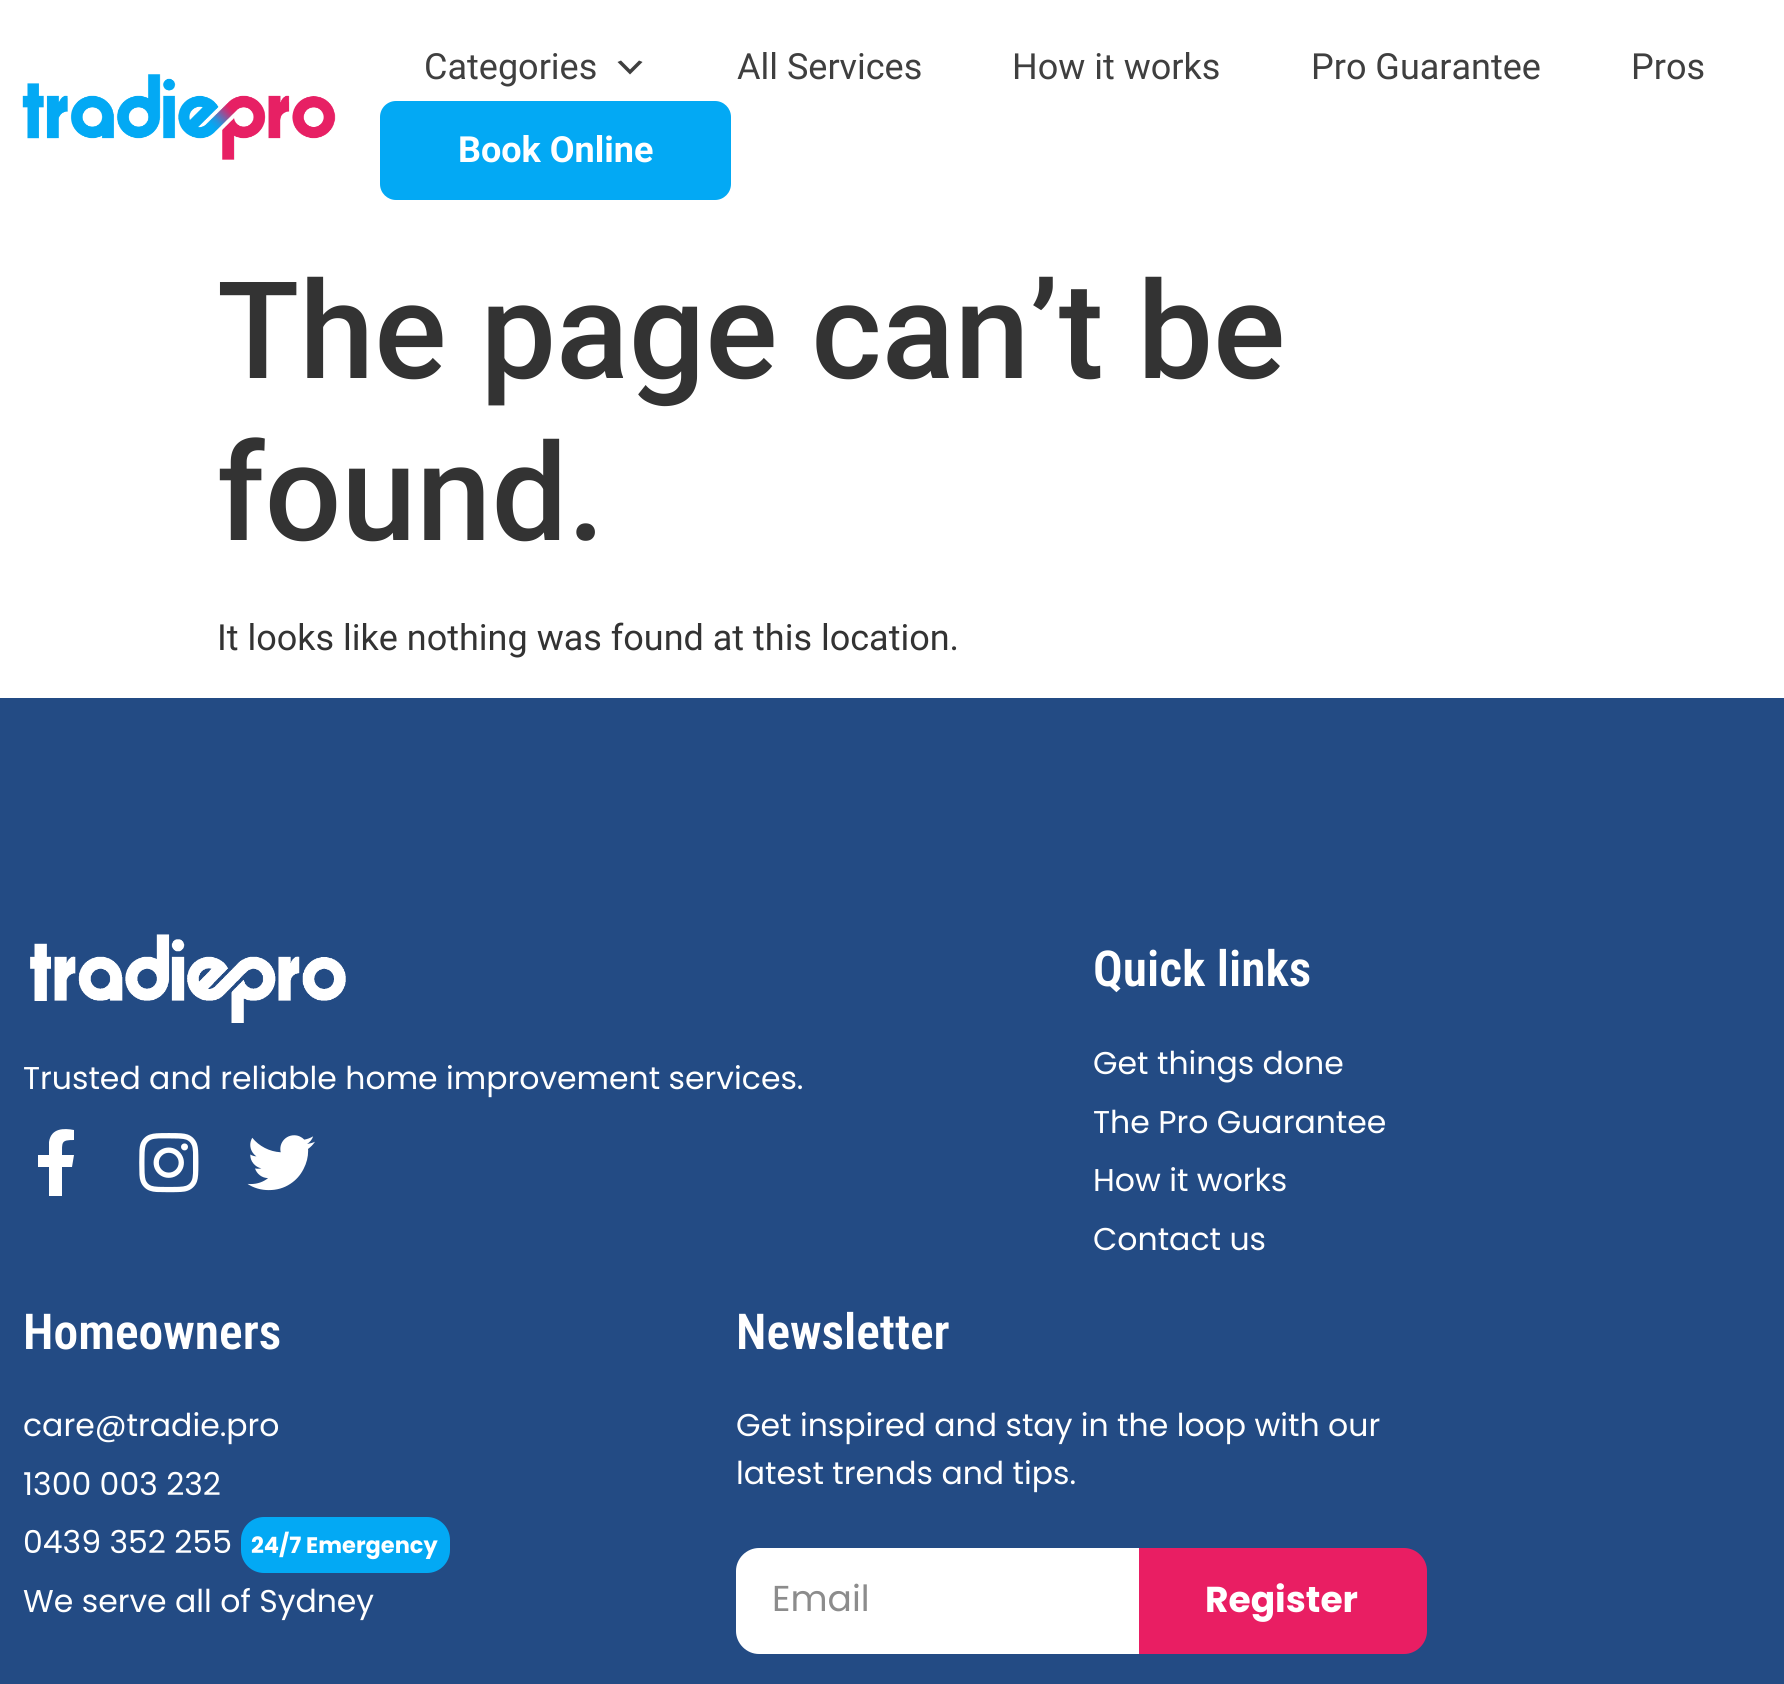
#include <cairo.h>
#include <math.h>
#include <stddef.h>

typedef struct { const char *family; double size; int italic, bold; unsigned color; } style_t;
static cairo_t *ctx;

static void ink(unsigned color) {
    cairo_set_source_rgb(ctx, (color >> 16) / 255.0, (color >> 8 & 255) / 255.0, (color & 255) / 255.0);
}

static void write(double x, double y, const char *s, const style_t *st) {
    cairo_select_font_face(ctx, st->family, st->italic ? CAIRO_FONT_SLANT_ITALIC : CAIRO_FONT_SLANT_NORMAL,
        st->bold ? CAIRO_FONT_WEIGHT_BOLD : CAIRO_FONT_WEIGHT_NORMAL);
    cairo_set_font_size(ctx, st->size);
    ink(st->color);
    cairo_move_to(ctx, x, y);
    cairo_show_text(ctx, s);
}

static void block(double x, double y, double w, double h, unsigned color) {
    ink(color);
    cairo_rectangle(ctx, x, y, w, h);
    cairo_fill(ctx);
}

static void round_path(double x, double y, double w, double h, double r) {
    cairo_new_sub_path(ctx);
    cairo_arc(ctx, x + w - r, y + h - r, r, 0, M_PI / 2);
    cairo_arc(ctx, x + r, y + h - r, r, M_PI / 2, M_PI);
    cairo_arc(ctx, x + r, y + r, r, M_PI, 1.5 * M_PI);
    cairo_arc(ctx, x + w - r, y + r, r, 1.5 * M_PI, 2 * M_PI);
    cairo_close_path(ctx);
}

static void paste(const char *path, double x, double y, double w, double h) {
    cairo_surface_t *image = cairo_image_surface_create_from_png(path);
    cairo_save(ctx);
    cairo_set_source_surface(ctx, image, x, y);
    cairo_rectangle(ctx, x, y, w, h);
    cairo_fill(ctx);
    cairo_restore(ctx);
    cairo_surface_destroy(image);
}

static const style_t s1 = {"Roboto", 36, 0, 0, 0x3f3f3f};
static const style_t s2 = {"Roboto", 36, 0, 1, 0xffffff};
static const style_t s3 = {"Roboto Medium", 135, 0, 0, 0x333333};
static const style_t s4 = {"Roboto", 36, 0, 0, 0x333333};
static const style_t s5 = {"Poppins", 31.5, 0, 0, 0xffffff};
static const style_t s6 = {"Roboto Condensed SemiBold", 49.5, 0, 0, 0xffffff};
static const style_t s7 = {"Poppins", 22.5, 0, 1, 0xffffff};
static const style_t s8 = {"Poppins", 36, 0, 0, 0x8c8c8c};
static const style_t s9 = {"Poppins", 36, 0, 1, 0xffffff};

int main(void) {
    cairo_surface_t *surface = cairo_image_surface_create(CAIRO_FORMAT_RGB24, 1784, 1684);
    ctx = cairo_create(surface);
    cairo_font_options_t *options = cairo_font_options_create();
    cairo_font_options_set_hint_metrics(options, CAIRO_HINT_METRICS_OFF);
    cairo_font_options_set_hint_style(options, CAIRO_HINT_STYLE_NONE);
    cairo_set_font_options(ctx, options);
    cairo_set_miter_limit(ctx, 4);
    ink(0xffffff);
    cairo_paint(ctx);
    paste("pic1.png", 22, 74, 314, 86);
    write(424, 79, "Categories", &s1);
    cairo_new_path(ctx);
    cairo_move_to(ctx, 621, 60.5);
    cairo_line_to(ctx, 630, 69.5);
    cairo_line_to(ctx, 639, 60.5);
    cairo_line_to(ctx, 642.5, 62);
    cairo_line_to(ctx, 630, 74.5);
    cairo_line_to(ctx, 617.5, 62);
    cairo_close_path(ctx);
    cairo_fill(ctx);
    write(737, 79, "All Services", &s1);
    write(1012, 79, "How it works", &s1);
    write(1311, 79, "Pro Guarantee", &s1);
    write(1631, 79, "Pros", &s1);
    ink(0x03a9f4);
    round_path(380, 101, 351, 99, 16);
    cairo_fill(ctx);
    write(458, 162, "Book Online", &s2);
    write(217, 378, "The page can’t be", &s3);
    write(217, 540, "found.", &s3);
    write(217, 650, "It looks like nothing was found at this location.", &s4);
    block(0, 698, 1784, 986, 0x234b84);
    paste("pic2.png", 30, 934, 316, 89);
    write(23, 1089, "Trusted and reliable home improvement services.", &s5);
    cairo_new_path(ctx);
    cairo_move_to(ctx, 72, 1167);
    cairo_line_to(ctx, 62, 1167);
    cairo_line_to(ctx, 62, 1196);
    cairo_line_to(ctx, 49, 1196);
    cairo_line_to(ctx, 49, 1167);
    cairo_line_to(ctx, 38, 1167);
    cairo_line_to(ctx, 38, 1155);
    cairo_line_to(ctx, 49, 1155);
    cairo_line_to(ctx, 49, 1142);
    cairo_curve_to(ctx, 51, 1128, 64, 1128, 74, 1130);
    cairo_line_to(ctx, 74, 1140);
    cairo_curve_to(ctx, 61, 1140, 62, 1142, 62, 1155);
    cairo_line_to(ctx, 74, 1155);
    cairo_close_path(ctx);
    cairo_fill(ctx);
    paste("pic3.png", 139, 1133, 60, 60);
    paste("pic4.png", 247, 1135, 68, 56);
    write(1093, 986, "Quick links", &s6);
    write(1093, 1074, "Get things done", &s5);
    write(1093, 1133, "The Pro Guarantee", &s5);
    write(1093, 1191, "How it works", &s5);
    write(1093, 1250, "Contact us", &s5);
    write(23, 1349, "Homeowners", &s6);
    write(23, 1436, "care@tradie.pro", &s5);
    write(23, 1495, "1300 003 232", &s5);
    write(23, 1553, "0439 352 255", &s5);
    ink(0x03a9f4);
    round_path(241, 1517, 209, 56, 23);
    cairo_fill(ctx);
    write(251, 1553, "24/7 Emergency", &s7);
    write(23, 1612, "We serve all of Sydney", &s5);
    write(736, 1349, "Newsletter", &s6);
    write(736, 1436, "Get inspired and stay in the loop with our", &s5);
    write(736, 1484, "latest trends and tips.", &s5);
    cairo_new_path(ctx);
    cairo_move_to(ctx, 759, 1548);
    cairo_line_to(ctx, 1139, 1548);
    cairo_line_to(ctx, 1139, 1654);
    cairo_line_to(ctx, 759, 1654);
    cairo_curve_to(ctx, 746.5, 1654, 736, 1643.5, 736, 1631);
    cairo_line_to(ctx, 736, 1571);
    cairo_curve_to(ctx, 736, 1558.5, 746.5, 1548, 759, 1548);
    cairo_close_path(ctx);
    cairo_fill(ctx);
    write(772, 1611, "Email", &s8);
    ink(0xe91e63);
    cairo_new_path(ctx);
    cairo_move_to(ctx, 1139, 1548);
    cairo_line_to(ctx, 1404, 1548);
    cairo_curve_to(ctx, 1416.5, 1548, 1427, 1558.5, 1427, 1571);
    cairo_line_to(ctx, 1427, 1631);
    cairo_curve_to(ctx, 1427, 1643.5, 1416.5, 1654, 1404, 1654);
    cairo_line_to(ctx, 1139, 1654);
    cairo_close_path(ctx);
    cairo_fill(ctx);
    write(1205, 1612, "Register", &s9);
    cairo_surface_write_to_png(surface, "screenshot.png");
    cairo_font_options_destroy(options);
    cairo_destroy(ctx);
    cairo_surface_destroy(surface);
    return 0;
}
